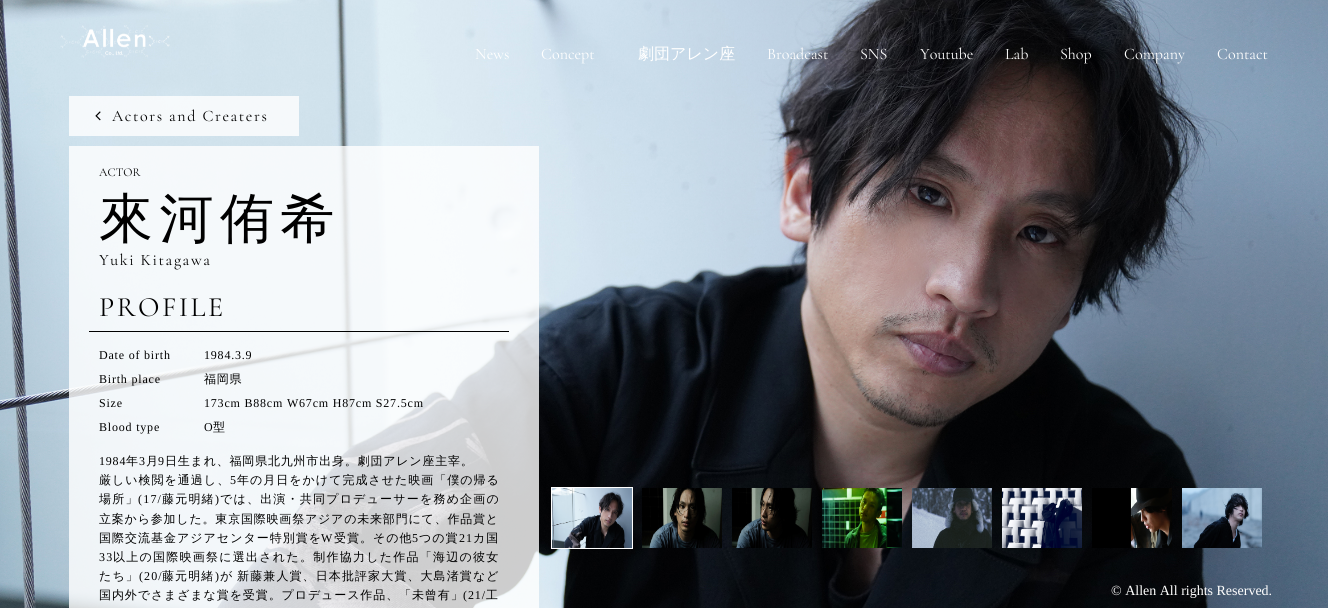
#include <cairo.h>
#include <math.h>
#include <stddef.h>

typedef struct { const char *family; double size; int italic, bold; unsigned color; } style_t;
static cairo_t *ctx;

static void ink(unsigned color) {
    cairo_set_source_rgb(ctx, (color >> 16) / 255.0, (color >> 8 & 255) / 255.0, (color & 255) / 255.0);
}

static void write(double x, double y, const char *s, const style_t *st) {
    cairo_select_font_face(ctx, st->family, st->italic ? CAIRO_FONT_SLANT_ITALIC : CAIRO_FONT_SLANT_NORMAL,
        st->bold ? CAIRO_FONT_WEIGHT_BOLD : CAIRO_FONT_WEIGHT_NORMAL);
    cairo_set_font_size(ctx, st->size);
    ink(st->color);
    cairo_move_to(ctx, x, y);
    cairo_show_text(ctx, s);
}

static void write_spaced(double x, double y, const char *s, double letter, double word) {
    cairo_move_to(ctx, x, y);
    while (*s) {
        char ch[5] = {0};
        int n = 0;
        do ch[n++] = *s++; while ((*s & 0xC0) == 0x80);
        cairo_show_text(ctx, ch);
        cairo_rel_move_to(ctx, letter + word * (*ch == ' '), 0);
    }
}

static void block(double x, double y, double w, double h, unsigned color) {
    ink(color);
    cairo_rectangle(ctx, x, y, w, h);
    cairo_fill(ctx);
}

static void paste(const char *path, double x, double y, double w, double h) {
    cairo_surface_t *image = cairo_image_surface_create_from_png(path);
    cairo_save(ctx);
    cairo_set_source_surface(ctx, image, x, y);
    cairo_rectangle(ctx, x, y, w, h);
    cairo_fill(ctx);
    cairo_restore(ctx);
    cairo_surface_destroy(image);
}

static const style_t s1 = {"Cormorant Garamond Light", 16, 0, 0, 0xffffff};
static const style_t s2 = {"WenQuanYi Zen Hei Medium", 16, 0, 0, 0xffffff};
static const style_t s3 = {"Cormorant Garamond Light", 12, 0, 0, 0x000000};
static const style_t s4 = {"Liberation Serif", 14, 0, 0, 0xffffff};

int main(void) {
    cairo_surface_t *surface = cairo_image_surface_create(CAIRO_FORMAT_RGB24, 1328, 608);
    ctx = cairo_create(surface);
    cairo_font_options_t *options = cairo_font_options_create();
    cairo_font_options_set_hint_metrics(options, CAIRO_HINT_METRICS_OFF);
    cairo_font_options_set_hint_style(options, CAIRO_HINT_STYLE_NONE);
    cairo_set_font_options(ctx, options);
    cairo_set_miter_limit(ctx, 4);
    ink(0xffffff);
    cairo_paint(ctx);
    paste("pic1.png", 0, 0, 1328, 608);
    paste("pic2.png", 552, 488, 80, 60);
    cairo_rectangle(ctx, 551.5, 487.5, 81, 61);
    ink(0xffffff);
    cairo_set_line_width(ctx, 1);
    cairo_stroke(ctx);
    paste("pic3.png", 642, 488, 80, 60);
    paste("pic4.png", 732, 488, 80, 60);
    paste("pic5.png", 822, 488, 80, 60);
    paste("pic6.png", 912, 488, 80, 60);
    paste("pic7.png", 1002, 488, 80, 60);
    paste("pic8.png", 1092, 488, 80, 60);
    paste("pic9.png", 1182, 488, 80, 60);
    paste("pic10.png", 60, 25, 110, 33);
    write(475, 59, "News", &s1);
    write(541, 59, "Concept", &s1);
    write(638, 59, "劇団アレン座", &s2);
    write(767, 59, "Broadcast", &s1);
    write(860, 59, "SNS", &s1);
    write(920, 59, "Youtube", &s1);
    write(1005, 59, "Lab", &s1);
    write(1060, 59, "Shop", &s1);
    write(1124, 59, "Company", &s1);
    write(1217, 59, "Contact", &s1);
    cairo_set_source_rgba(ctx, 1, 1, 1, 0.8);
    cairo_rectangle(ctx, 69, 96, 230, 40);
    cairo_fill(ctx);
    paste("pic11.png", 95, 111, 6, 10);
    ink(0x000000);
    write_spaced(112, 121, "Actors and Creaters", 1.6, 0);
    cairo_set_source_rgba(ctx, 1, 1, 1, 0.8);
    cairo_rectangle(ctx, 69, 146, 470, 462);
    cairo_fill(ctx);
    write(99, 176, "ACTOR", &s3);
    cairo_select_font_face(ctx, "WenQuanYi Zen Hei Medium", CAIRO_FONT_SLANT_NORMAL, CAIRO_FONT_WEIGHT_NORMAL);
    cairo_set_font_size(ctx, 54);
    write_spaced(99, 237, "來河侑希", 6.5, 0);
    cairo_select_font_face(ctx, "Cormorant Garamond Light", CAIRO_FONT_SLANT_NORMAL, CAIRO_FONT_WEIGHT_NORMAL);
    cairo_set_font_size(ctx, 16);
    write_spaced(99, 265, "Yuki Kitagawa", 1.6, 0);
    cairo_set_font_size(ctx, 28);
    write_spaced(99, 316, "PROFILE", 2.5, 0);
    block(89, 331, 420, 1, 0x000000);
    cairo_select_font_face(ctx, "Liberation Serif", CAIRO_FONT_SLANT_NORMAL, CAIRO_FONT_WEIGHT_NORMAL);
    cairo_set_font_size(ctx, 12);
    write_spaced(99, 359, "Date of birth", 0.8, 0);
    write_spaced(204, 359, "1984.3.9", 0.8, 0);
    write_spaced(99, 383, "Birth place", 0.8, 0);
    cairo_select_font_face(ctx, "WenQuanYi Zen Hei Medium", CAIRO_FONT_SLANT_NORMAL, CAIRO_FONT_WEIGHT_NORMAL);
    write_spaced(204, 383, "福岡県", 0.8, 0);
    cairo_select_font_face(ctx, "Liberation Serif", CAIRO_FONT_SLANT_NORMAL, CAIRO_FONT_WEIGHT_NORMAL);
    write_spaced(99, 407, "Size", 0.8, 0);
    write_spaced(204, 407, "173cm B88cm W67cm H87cm S27.5cm", 0.8, 0);
    write_spaced(99, 431, "Blood type", 0.8, 0);
    write_spaced(204, 431, "O", 0.8, 0);
    cairo_select_font_face(ctx, "WenQuanYi Zen Hei Medium", CAIRO_FONT_SLANT_NORMAL, CAIRO_FONT_WEIGHT_NORMAL);
    write_spaced(213, 431, "型", 0.8, 0);
    cairo_select_font_face(ctx, "Liberation Serif", CAIRO_FONT_SLANT_NORMAL, CAIRO_FONT_WEIGHT_NORMAL);
    write_spaced(99, 465, "1984", 0.8, 0);
    cairo_select_font_face(ctx, "WenQuanYi Zen Hei Medium", CAIRO_FONT_SLANT_NORMAL, CAIRO_FONT_WEIGHT_NORMAL);
    write_spaced(126, 465, "年", 0.8, 0);
    cairo_select_font_face(ctx, "Liberation Serif", CAIRO_FONT_SLANT_NORMAL, CAIRO_FONT_WEIGHT_NORMAL);
    write_spaced(139, 465, "3", 0.8, 0);
    cairo_select_font_face(ctx, "WenQuanYi Zen Hei Medium", CAIRO_FONT_SLANT_NORMAL, CAIRO_FONT_WEIGHT_NORMAL);
    write_spaced(146, 465, "月", 0.8, 0);
    cairo_select_font_face(ctx, "Liberation Serif", CAIRO_FONT_SLANT_NORMAL, CAIRO_FONT_WEIGHT_NORMAL);
    write_spaced(158, 465, "9", 0.8, 0);
    cairo_select_font_face(ctx, "WenQuanYi Zen Hei Medium", CAIRO_FONT_SLANT_NORMAL, CAIRO_FONT_WEIGHT_NORMAL);
    write_spaced(165, 465, "日生まれ、福岡県北九州市出身。劇団アレン座主宰。", 0.8, 0);
    write_spaced(99, 484, "厳しい検閲を通過し、", 1, 0);
    cairo_select_font_face(ctx, "Liberation Serif", CAIRO_FONT_SLANT_NORMAL, CAIRO_FONT_WEIGHT_NORMAL);
    write_spaced(230, 484, "5", 1, 0);
    cairo_select_font_face(ctx, "WenQuanYi Zen Hei Medium", CAIRO_FONT_SLANT_NORMAL, CAIRO_FONT_WEIGHT_NORMAL);
    write_spaced(237, 484, "年の月日をかけて完成させた映画「僕の帰る", 1, 0);
    write_spaced(99, 503, "場所」", 1.2, 0);
    cairo_select_font_face(ctx, "Liberation Serif", CAIRO_FONT_SLANT_NORMAL, CAIRO_FONT_WEIGHT_NORMAL);
    write_spaced(138, 503, "(17/", 1.2, 0);
    cairo_select_font_face(ctx, "WenQuanYi Zen Hei Medium", CAIRO_FONT_SLANT_NORMAL, CAIRO_FONT_WEIGHT_NORMAL);
    write_spaced(162, 503, "藤元明緒", 1.2, 0);
    cairo_select_font_face(ctx, "Liberation Serif", CAIRO_FONT_SLANT_NORMAL, CAIRO_FONT_WEIGHT_NORMAL);
    write_spaced(215, 503, ")", 1.2, 0);
    cairo_select_font_face(ctx, "WenQuanYi Zen Hei Medium", CAIRO_FONT_SLANT_NORMAL, CAIRO_FONT_WEIGHT_NORMAL);
    write_spaced(220, 503, "では、出演・共同プロデューサーを務め企画の", 1.2, 0);
    write_spaced(99, 523, "立案から参加した。東京国際映画祭アジアの未来部門にて、作品賞と", 0.8, 0);
    write_spaced(99, 542, "国際交流基金アジアセンター特別賞を", 1, 0);
    cairo_select_font_face(ctx, "Liberation Serif", CAIRO_FONT_SLANT_NORMAL, CAIRO_FONT_WEIGHT_NORMAL);
    write_spaced(321, 542, "W", 1, 0);
    cairo_select_font_face(ctx, "WenQuanYi Zen Hei Medium", CAIRO_FONT_SLANT_NORMAL, CAIRO_FONT_WEIGHT_NORMAL);
    write_spaced(334, 542, "受賞。その他", 1, 0);
    cairo_select_font_face(ctx, "Liberation Serif", CAIRO_FONT_SLANT_NORMAL, CAIRO_FONT_WEIGHT_NORMAL);
    write_spaced(412, 542, "5", 1, 0);
    cairo_select_font_face(ctx, "WenQuanYi Zen Hei Medium", CAIRO_FONT_SLANT_NORMAL, CAIRO_FONT_WEIGHT_NORMAL);
    write_spaced(419, 542, "つの賞", 1, 0);
    cairo_select_font_face(ctx, "Liberation Serif", CAIRO_FONT_SLANT_NORMAL, CAIRO_FONT_WEIGHT_NORMAL);
    write_spaced(459, 542, "21", 1, 0);
    cairo_select_font_face(ctx, "WenQuanYi Zen Hei Medium", CAIRO_FONT_SLANT_NORMAL, CAIRO_FONT_WEIGHT_NORMAL);
    write_spaced(473, 542, "カ国", 1, 0);
    cairo_select_font_face(ctx, "Liberation Serif", CAIRO_FONT_SLANT_NORMAL, CAIRO_FONT_WEIGHT_NORMAL);
    write_spaced(99, 561, "33", 1.25, 0);
    cairo_select_font_face(ctx, "WenQuanYi Zen Hei Medium", CAIRO_FONT_SLANT_NORMAL, CAIRO_FONT_WEIGHT_NORMAL);
    write_spaced(113, 561, "以上の国際映画祭に選出された。制作協力した作品「海辺の彼女", 1.25, 0);
    write_spaced(99, 580, "たち」", 1.1, 0);
    cairo_select_font_face(ctx, "Liberation Serif", CAIRO_FONT_SLANT_NORMAL, CAIRO_FONT_WEIGHT_NORMAL);
    write_spaced(139, 580, "(20/", 1.1, 0);
    cairo_select_font_face(ctx, "WenQuanYi Zen Hei Medium", CAIRO_FONT_SLANT_NORMAL, CAIRO_FONT_WEIGHT_NORMAL);
    write_spaced(162, 580, "藤元明緒", 1.1, 0);
    cairo_select_font_face(ctx, "Liberation Serif", CAIRO_FONT_SLANT_NORMAL, CAIRO_FONT_WEIGHT_NORMAL);
    write_spaced(215, 580, ")", 1.1, 0);
    cairo_select_font_face(ctx, "WenQuanYi Zen Hei Medium", CAIRO_FONT_SLANT_NORMAL, CAIRO_FONT_WEIGHT_NORMAL);
    write_spaced(220, 580, "が 新藤兼人賞、日本批評家大賞、大島渚賞など", 1.1, -1);
    write_spaced(99, 599, "国内外でさまざまな賞を受賞。プロデュース作品、「未曾有」", 0.9, 0);
    cairo_select_font_face(ctx, "Liberation Serif", CAIRO_FONT_SLANT_NORMAL, CAIRO_FONT_WEIGHT_NORMAL);
    write_spaced(463, 599, "(21/", 0.9, 0);
    cairo_select_font_face(ctx, "WenQuanYi Zen Hei Medium", CAIRO_FONT_SLANT_NORMAL, CAIRO_FONT_WEIGHT_NORMAL);
    write_spaced(486, 599, "工", 0.9, 0);
    write(1111, 595, "© Allen All rights Reserved.", &s4);
    cairo_surface_write_to_png(surface, "screenshot.png");
    cairo_font_options_destroy(options);
    cairo_destroy(ctx);
    cairo_surface_destroy(surface);
    return 0;
}
